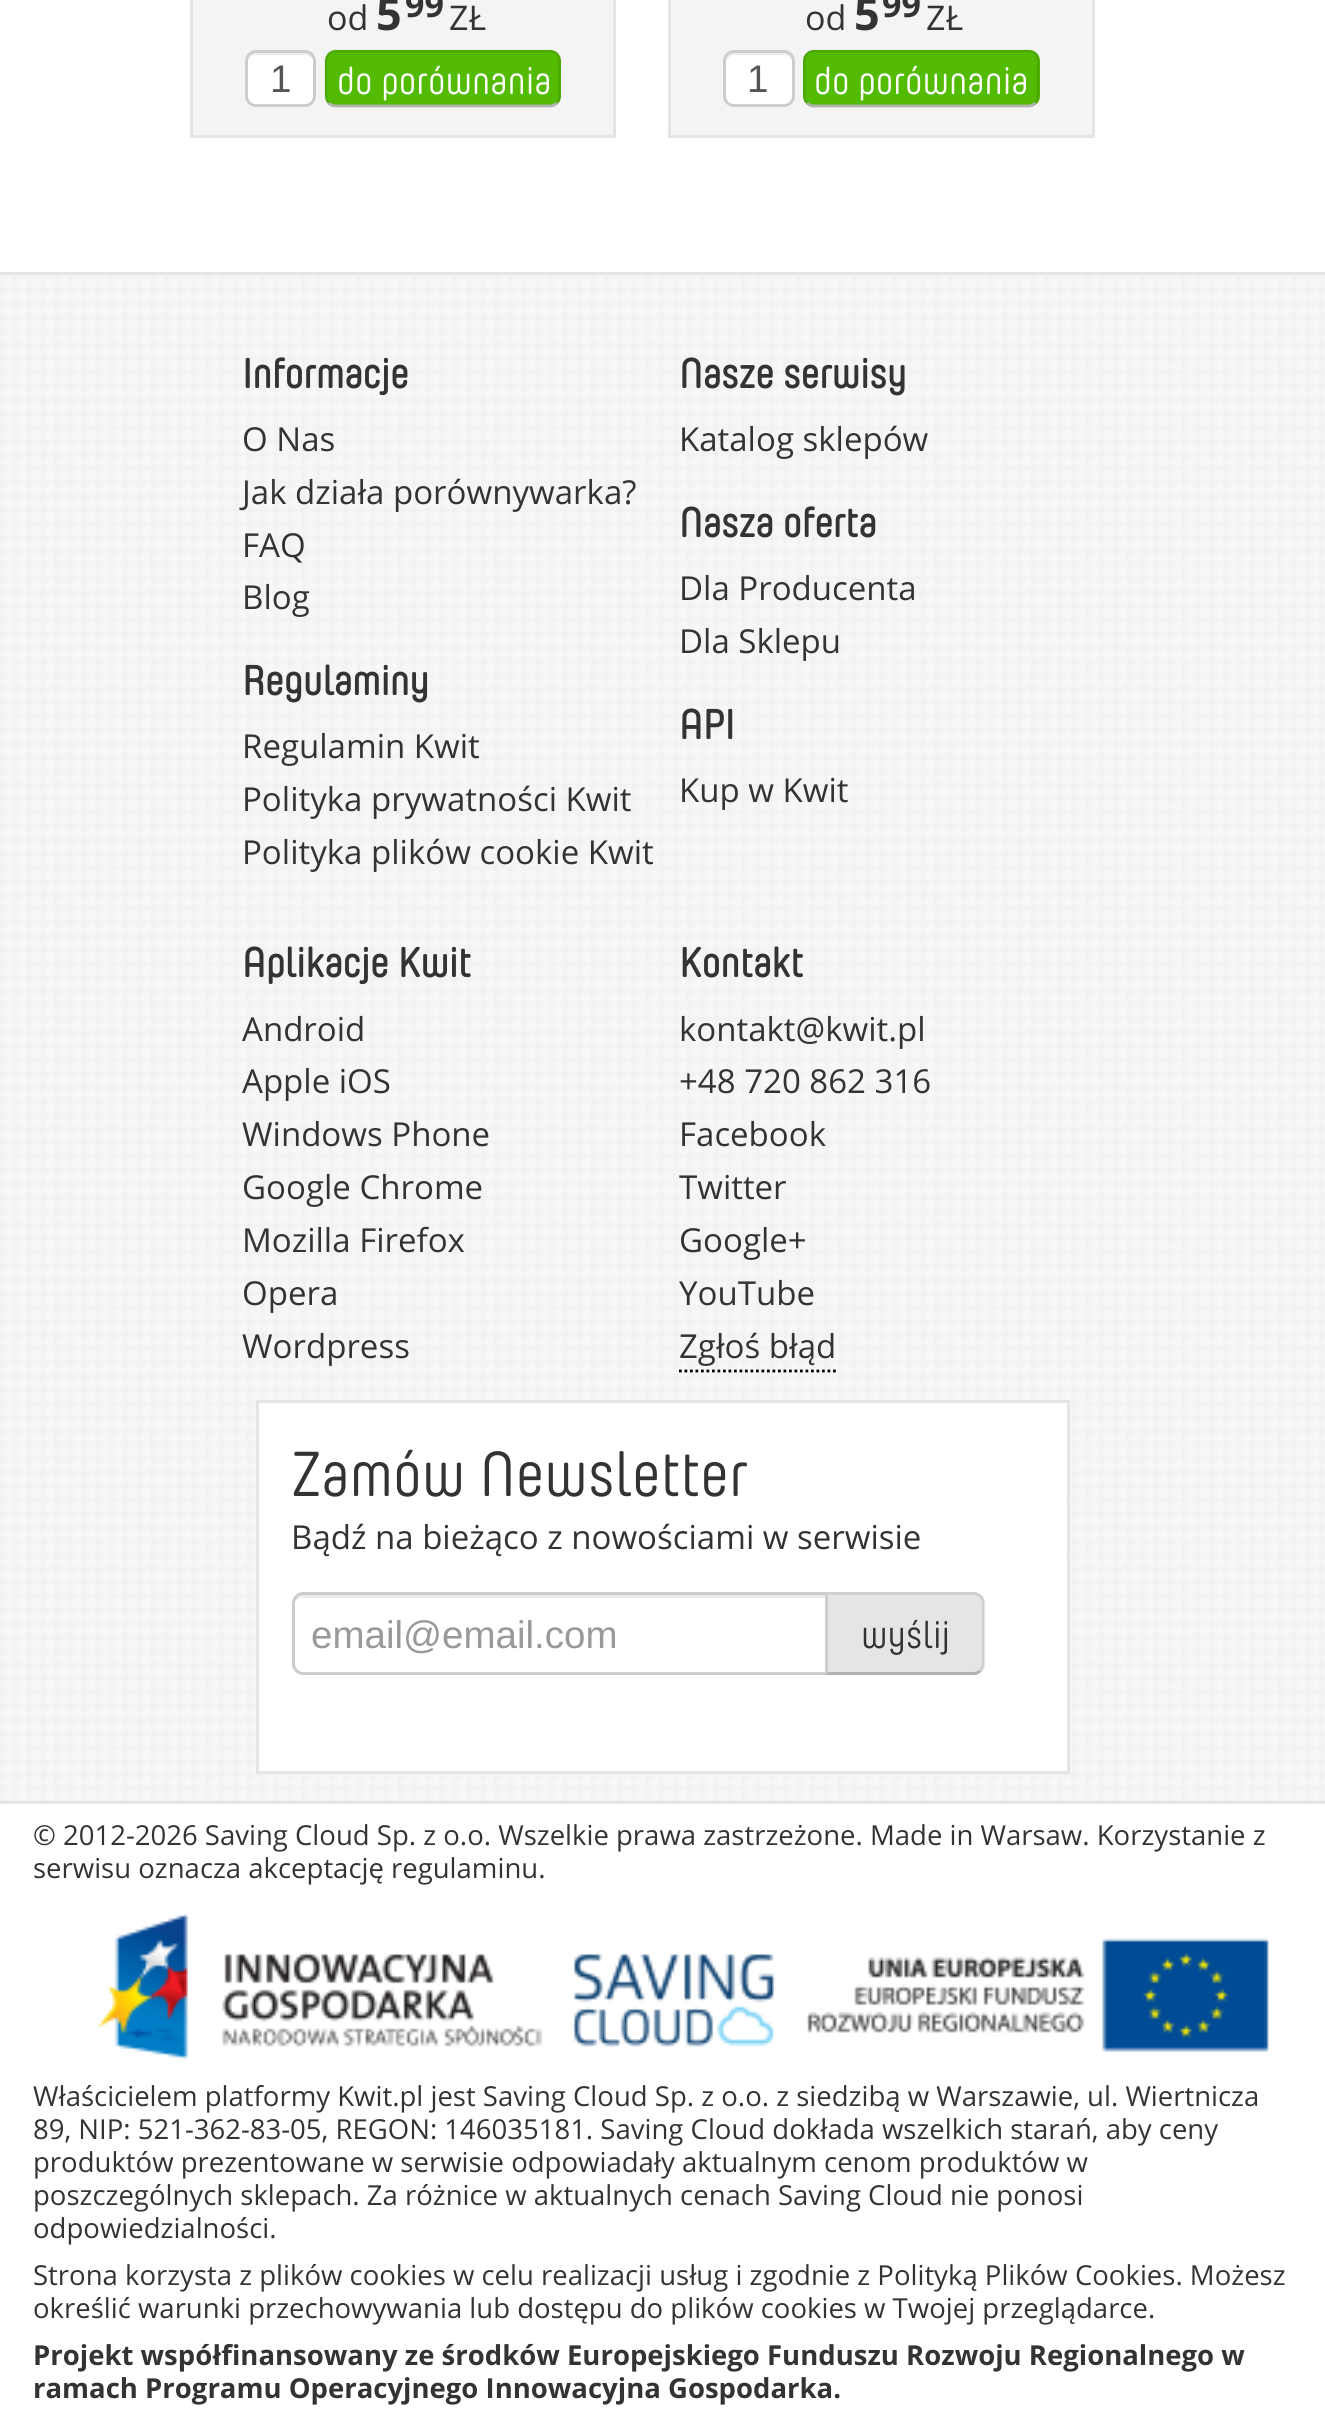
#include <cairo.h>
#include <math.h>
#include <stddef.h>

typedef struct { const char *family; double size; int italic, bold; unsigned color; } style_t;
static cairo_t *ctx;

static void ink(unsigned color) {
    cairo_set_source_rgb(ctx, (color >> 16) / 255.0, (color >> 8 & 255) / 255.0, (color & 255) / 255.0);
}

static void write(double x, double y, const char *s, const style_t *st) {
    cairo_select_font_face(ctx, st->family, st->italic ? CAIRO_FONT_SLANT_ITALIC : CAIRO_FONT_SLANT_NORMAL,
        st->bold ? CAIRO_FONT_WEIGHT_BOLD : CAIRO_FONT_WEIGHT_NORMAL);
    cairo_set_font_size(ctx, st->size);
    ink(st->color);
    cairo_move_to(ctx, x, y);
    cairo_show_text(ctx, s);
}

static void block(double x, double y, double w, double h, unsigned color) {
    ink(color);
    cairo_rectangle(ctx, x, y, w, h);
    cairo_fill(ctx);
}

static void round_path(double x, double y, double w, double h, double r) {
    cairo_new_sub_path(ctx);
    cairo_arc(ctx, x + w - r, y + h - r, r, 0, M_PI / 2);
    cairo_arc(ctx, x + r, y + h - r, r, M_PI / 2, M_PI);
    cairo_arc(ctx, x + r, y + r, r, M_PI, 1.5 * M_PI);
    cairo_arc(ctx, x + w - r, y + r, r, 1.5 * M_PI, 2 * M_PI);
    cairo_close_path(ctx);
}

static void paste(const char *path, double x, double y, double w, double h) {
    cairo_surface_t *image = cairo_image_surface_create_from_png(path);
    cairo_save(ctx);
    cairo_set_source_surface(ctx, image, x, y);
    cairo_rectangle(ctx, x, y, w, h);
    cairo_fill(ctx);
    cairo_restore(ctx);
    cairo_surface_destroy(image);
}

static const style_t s1 = {"Open Sans", 34, 0, 0, 0x333333};
static const style_t s2 = {"Open Sans", 45, 0, 1, 0x333333};
static const style_t s3 = {"Open Sans", 34, 0, 1, 0x333333};
static const style_t s4 = {"Liberation Sans", 38.5, 0, 0, 0x555555};
static const style_t s5 = {"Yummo", 38.5, 0, 0, 0xffffff};
static const style_t s6 = {"Yummo", 41.25, 0, 1, 0x333333};
static const style_t s7 = {"Open Sans", 33, 0, 0, 0x333333};
static const style_t s8 = {"Yummo", 63.25, 0, 0, 0x333333};
static const style_t s9 = {"Liberation Sans", 38.5, 0, 0, 0x999999};
static const style_t s10 = {"Yummo", 38.5, 0, 0, 0x333333};
static const style_t s11 = {"Open Sans", 27.5, 0, 0, 0x333333};
static const style_t s12 = {"Open Sans", 27.5, 0, 1, 0x333333};

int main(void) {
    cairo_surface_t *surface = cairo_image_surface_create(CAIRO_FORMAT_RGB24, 1325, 2419);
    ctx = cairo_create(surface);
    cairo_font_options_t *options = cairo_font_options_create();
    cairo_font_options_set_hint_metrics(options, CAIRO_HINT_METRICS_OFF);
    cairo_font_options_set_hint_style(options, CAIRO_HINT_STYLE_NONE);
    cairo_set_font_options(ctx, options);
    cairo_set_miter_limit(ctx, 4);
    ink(0xffffff);
    cairo_paint(ctx);
    cairo_rectangle(ctx, 191.5, -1.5, 423, 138);
    ink(0xe5e5e5);
    cairo_set_line_width(ctx, 3);
    cairo_stroke(ctx);
    block(193, 0, 420, 135, 0xf4f4f4);
    write(327, 30, "od", &s1);
    write(376, 30, "5", &s2);
    write(405, 17, "99", &s3);
    write(449, 30, "ZŁ", &s1);
    ink(0xffffff);
    round_path(245, 50, 71, 57, 11);
    cairo_fill(ctx);
    ink(0xececec);
    cairo_new_path(ctx);
    cairo_move_to(ctx, 256, 55);
    cairo_line_to(ctx, 305, 55);
    cairo_curve_to(ctx, 310, 55, 314, 59, 314, 63);
    cairo_curve_to(ctx, 314, 51, 308, 52, 298, 52);
    cairo_line_to(ctx, 264, 52);
    cairo_curve_to(ctx, 254, 52, 248, 51, 248, 63);
    cairo_curve_to(ctx, 248, 59, 251, 55, 256, 55);
    cairo_close_path(ctx);
    cairo_fill(ctx);
    round_path(246.5, 51.5, 68, 54, 9.5);
    ink(0xcccccc);
    cairo_stroke(ctx);
    write(270, 92, "1", &s4);
    ink(0x53bb02);
    round_path(325, 50, 236, 57, 11);
    cairo_fill(ctx);
    cairo_new_path(ctx);
    cairo_move_to(ctx, 557, 103);
    cairo_curve_to(ctx, 555, 105, 552.5, 106, 550, 106);
    cairo_line_to(ctx, 335.5, 106);
    cairo_curve_to(ctx, 333, 106, 330.5, 105, 328.5, 103);
    ink(0xb3b3b3);
    cairo_set_line_width(ctx, 2.8);
    cairo_stroke(ctx);
    cairo_new_path(ctx);
    cairo_move_to(ctx, 328.5, 103);
    cairo_curve_to(ctx, 325, 99.5, 326, 95, 326, 90.5);
    cairo_line_to(ctx, 326, 72.5);
    cairo_curve_to(ctx, 326, 65, 323.5, 51, 335.5, 51);
    cairo_line_to(ctx, 550, 51);
    cairo_curve_to(ctx, 562, 51, 559.5, 65, 559.5, 72.5);
    cairo_line_to(ctx, 559.5, 90.5);
    cairo_curve_to(ctx, 559.5, 95, 560.5, 99.5, 557, 103);
    cairo_set_source_rgba(ctx, 0, 0, 0, 0.1);
    cairo_stroke(ctx);
    write(337, 94, "do porównania", &s5);
    cairo_rectangle(ctx, 669.5, -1.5, 424, 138);
    ink(0xe5e5e5);
    cairo_set_line_width(ctx, 3);
    cairo_stroke(ctx);
    block(671, 0, 421, 135, 0xf4f4f4);
    write(805, 30, "od", &s1);
    write(854, 30, "5", &s2);
    write(882, 17, "99", &s3);
    write(926, 30, "ZŁ", &s1);
    ink(0xffffff);
    round_path(723, 50, 72, 57, 11);
    cairo_fill(ctx);
    ink(0xececec);
    cairo_new_path(ctx);
    cairo_move_to(ctx, 734, 55);
    cairo_line_to(ctx, 784, 55);
    cairo_curve_to(ctx, 788, 55, 792, 59, 792, 63);
    cairo_curve_to(ctx, 792, 51, 786, 52, 776, 52);
    cairo_line_to(ctx, 742, 52);
    cairo_curve_to(ctx, 732, 52, 726, 51, 726, 63);
    cairo_curve_to(ctx, 726, 59, 730, 55, 734, 55);
    cairo_close_path(ctx);
    cairo_fill(ctx);
    round_path(724.5, 51.5, 69, 54, 9.5);
    ink(0xcccccc);
    cairo_stroke(ctx);
    write(747, 92, "1", &s4);
    ink(0x53bb02);
    round_path(803, 50, 237, 57, 11);
    cairo_fill(ctx);
    cairo_new_path(ctx);
    cairo_move_to(ctx, 1035.5, 103);
    cairo_curve_to(ctx, 1033.5, 105, 1031, 106, 1028.5, 106);
    cairo_line_to(ctx, 814, 106);
    cairo_curve_to(ctx, 811.5, 106, 809, 105, 807, 103);
    ink(0xb3b3b3);
    cairo_set_line_width(ctx, 2.8);
    cairo_stroke(ctx);
    cairo_new_path(ctx);
    cairo_move_to(ctx, 807, 103);
    cairo_curve_to(ctx, 803.5, 99.5, 804.5, 95, 804.5, 90.5);
    cairo_line_to(ctx, 804.5, 72.5);
    cairo_curve_to(ctx, 804.5, 65, 802, 51, 814, 51);
    cairo_line_to(ctx, 1028.5, 51);
    cairo_curve_to(ctx, 1040.5, 51, 1038, 65, 1038, 72.5);
    cairo_line_to(ctx, 1038, 90.5);
    cairo_curve_to(ctx, 1038, 95, 1039, 99.5, 1035.5, 103);
    cairo_set_source_rgba(ctx, 0, 0, 0, 0.1);
    cairo_stroke(ctx);
    write(814, 94, "do porównania", &s5);
    paste("pic1.png", 0, 275, 1325, 1526);
    block(0, 272, 1325, 3, 0xe5e5e5);
    block(0, 1801, 1325, 3, 0xe5e5e5);
    write(242, 388, "Informacje", &s6);
    write(242, 451, "O Nas", &s7);
    write(242, 504, "Jak działa porównywarka?", &s7);
    write(242, 557, "FAQ", &s7);
    write(242, 609, "Blog", &s7);
    write(242, 695, "Regulaminy", &s6);
    write(242, 758, "Regulamin Kwit", &s7);
    write(242, 811, "Polityka prywatności Kwit", &s7);
    write(242, 864, "Polityka plików cookie Kwit", &s7);
    write(679, 388, "Nasze serwisy", &s6);
    write(679, 451, "Katalog sklepów", &s7);
    write(679, 537, "Nasza oferta", &s6);
    write(679, 600, "Dla Producenta", &s7);
    write(679, 653, "Dla Sklepu", &s7);
    write(679, 739, "API", &s6);
    write(679, 802, "Kup w Kwit", &s7);
    write(242, 977, "Aplikacje Kwit", &s6);
    write(242, 1041, "Android", &s7);
    write(242, 1093, "Apple iOS", &s7);
    write(242, 1146, "Windows Phone", &s7);
    write(242, 1199, "Google Chrome", &s7);
    write(242, 1252, "Mozilla Firefox", &s7);
    write(242, 1305, "Opera", &s7);
    write(242, 1358, "Wordpress", &s7);
    write(679, 977, "Kontakt", &s6);
    write(679, 1041, "kontakt@kwit.pl", &s7);
    write(679, 1093, "+48 720 862 316", &s7);
    write(679, 1146, "Facebook", &s7);
    write(679, 1199, "Twitter", &s7);
    write(679, 1252, "Google+", &s7);
    write(679, 1305, "YouTube", &s7);
    write(679, 1358, "Zgłoś błąd", &s7);
    cairo_new_path(ctx);
    cairo_move_to(ctx, 679, 1371);
    cairo_line_to(ctx, 836, 1371);
    ink(0x000000);
    cairo_set_dash(ctx, (double[]){2.75, 2.75}, 2, 0);
    cairo_stroke(ctx);
    ink(0xffffff);
    cairo_rectangle(ctx, 257.5, 1401.5, 811, 371);
    cairo_fill_preserve(ctx);
    ink(0xe5e5e5);
    cairo_set_line_width(ctx, 3);
    cairo_set_dash(ctx, NULL, 0, 0);
    cairo_stroke(ctx);
    write(291, 1496, "Zamów Newsletter", &s8);
    write(291, 1549, "Bądź na bieżąco z nowościami w serwisie", &s7);
    ink(0xececec);
    cairo_new_path(ctx);
    cairo_move_to(ctx, 302, 1598);
    cairo_line_to(ctx, 825, 1598);
    cairo_line_to(ctx, 825, 1595);
    cairo_line_to(ctx, 302, 1595);
    cairo_curve_to(ctx, 296, 1595, 294, 1601, 294, 1606);
    cairo_curve_to(ctx, 294, 1601, 298, 1598, 302, 1598);
    cairo_close_path(ctx);
    cairo_fill(ctx);
    cairo_new_path(ctx);
    cairo_move_to(ctx, 303, 1593.5);
    cairo_line_to(ctx, 826.5, 1593.5);
    cairo_line_to(ctx, 826.5, 1673.5);
    cairo_line_to(ctx, 303, 1673.5);
    cairo_curve_to(ctx, 298, 1673.5, 293.5, 1669, 293.5, 1664);
    cairo_line_to(ctx, 293.5, 1603);
    cairo_curve_to(ctx, 293.5, 1598, 298, 1593.5, 303, 1593.5);
    cairo_close_path(ctx);
    ink(0xcccccc);
    cairo_stroke(ctx);
    write(311, 1648, "email@email.com", &s9);
    ink(0xe5e5e5);
    cairo_new_path(ctx);
    cairo_move_to(ctx, 825, 1592);
    cairo_line_to(ctx, 974, 1592);
    cairo_curve_to(ctx, 980, 1592, 985, 1597, 985, 1603);
    cairo_line_to(ctx, 985, 1664);
    cairo_curve_to(ctx, 985, 1670, 980, 1675, 974, 1675);
    cairo_line_to(ctx, 825, 1675);
    cairo_close_path(ctx);
    cairo_fill(ctx);
    cairo_set_source_rgba(ctx, 0, 0, 0, 0.1);
    cairo_new_path(ctx);
    cairo_move_to(ctx, 828, 1595);
    cairo_line_to(ctx, 825, 1592);
    cairo_line_to(ctx, 976, 1592);
    cairo_curve_to(ctx, 978, 1593, 980, 1594, 981, 1595);
    cairo_line_to(ctx, 979, 1597);
    cairo_curve_to(ctx, 978, 1596, 976, 1595, 974, 1595);
    cairo_close_path(ctx);
    cairo_fill(ctx);
    cairo_new_path(ctx);
    cairo_move_to(ctx, 981, 1595);
    cairo_curve_to(ctx, 983, 1597, 984, 1600, 984, 1603);
    cairo_line_to(ctx, 984, 1664);
    cairo_curve_to(ctx, 984, 1667, 983, 1670, 981, 1672);
    cairo_line_to(ctx, 979, 1670);
    cairo_curve_to(ctx, 981, 1668, 982, 1666, 982, 1664);
    cairo_line_to(ctx, 982, 1603);
    cairo_curve_to(ctx, 982, 1601, 981, 1599, 979, 1597);
    cairo_close_path(ctx);
    cairo_fill(ctx);
    ink(0xb3b3b3);
    cairo_new_path(ctx);
    cairo_move_to(ctx, 976, 1675);
    cairo_line_to(ctx, 825, 1675);
    cairo_line_to(ctx, 828, 1672);
    cairo_line_to(ctx, 974, 1672);
    cairo_curve_to(ctx, 976, 1672, 978, 1671, 979, 1670);
    cairo_line_to(ctx, 981, 1672);
    cairo_curve_to(ctx, 980, 1673, 978, 1674, 976, 1675);
    cairo_close_path(ctx);
    cairo_fill(ctx);
    cairo_set_source_rgba(ctx, 0, 0, 0, 0.1);
    cairo_new_path(ctx);
    cairo_move_to(ctx, 825, 1675);
    cairo_line_to(ctx, 828, 1672);
    cairo_line_to(ctx, 828, 1595);
    cairo_line_to(ctx, 825, 1592);
    cairo_close_path(ctx);
    cairo_fill(ctx);
    write(861, 1648, "wyślij", &s10);
    write(33, 1845, "© 2012-2026 Saving Cloud Sp. z o.o. Wszelkie prawa zastrzeżone. Made in Warsaw. Korzystanie z", &s11);
    write(33, 1878, "serwisu oznacza akceptację regulaminu.", &s11);
    paste("pic2.png", 98, 1913, 1171, 147);
    write(33, 2106, "Właścicielem platformy Kwit.pl jest Saving Cloud Sp. z o.o. z siedzibą w Warszawie, ul. Wiertnicza", &s11);
    write(33, 2139, "89, NIP: 521-362-83-05, REGON: 146035181. Saving Cloud dokłada wszelkich starań, aby ceny", &s11);
    write(33, 2172, "produktów prezentowane w serwisie odpowiadały aktualnym cenom produktów w", &s11);
    write(33, 2205, "poszczególnych sklepach. Za różnice w aktualnych cenach Saving Cloud nie ponosi", &s11);
    write(33, 2238, "odpowiedzialności.", &s11);
    write(33, 2285, "Strona korzysta z plików cookies w celu realizacji usług i zgodnie z Polityką Plików Cookies. Możesz", &s11);
    write(33, 2318, "określić warunki przechowywania lub dostępu do plików cookies w Twojej przeglądarce.", &s11);
    write(33, 2365, "Projekt współfinansowany ze środków Europejskiego Funduszu Rozwoju Regionalnego w", &s12);
    write(33, 2398, "ramach Programu Operacyjnego Innowacyjna Gospodarka.", &s12);
    cairo_surface_write_to_png(surface, "screenshot.png");
    cairo_font_options_destroy(options);
    cairo_destroy(ctx);
    cairo_surface_destroy(surface);
    return 0;
}
